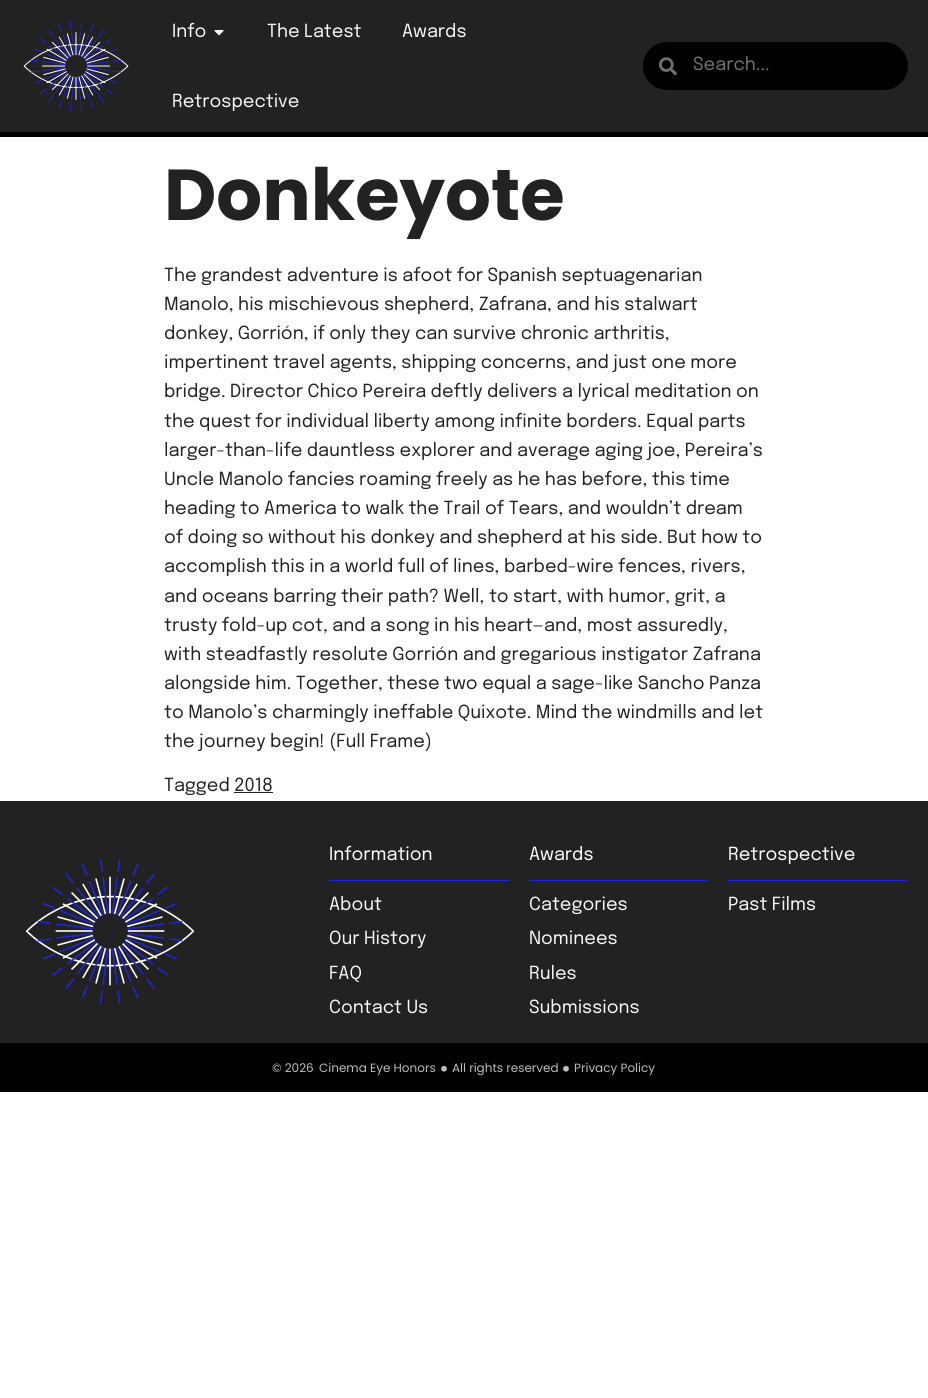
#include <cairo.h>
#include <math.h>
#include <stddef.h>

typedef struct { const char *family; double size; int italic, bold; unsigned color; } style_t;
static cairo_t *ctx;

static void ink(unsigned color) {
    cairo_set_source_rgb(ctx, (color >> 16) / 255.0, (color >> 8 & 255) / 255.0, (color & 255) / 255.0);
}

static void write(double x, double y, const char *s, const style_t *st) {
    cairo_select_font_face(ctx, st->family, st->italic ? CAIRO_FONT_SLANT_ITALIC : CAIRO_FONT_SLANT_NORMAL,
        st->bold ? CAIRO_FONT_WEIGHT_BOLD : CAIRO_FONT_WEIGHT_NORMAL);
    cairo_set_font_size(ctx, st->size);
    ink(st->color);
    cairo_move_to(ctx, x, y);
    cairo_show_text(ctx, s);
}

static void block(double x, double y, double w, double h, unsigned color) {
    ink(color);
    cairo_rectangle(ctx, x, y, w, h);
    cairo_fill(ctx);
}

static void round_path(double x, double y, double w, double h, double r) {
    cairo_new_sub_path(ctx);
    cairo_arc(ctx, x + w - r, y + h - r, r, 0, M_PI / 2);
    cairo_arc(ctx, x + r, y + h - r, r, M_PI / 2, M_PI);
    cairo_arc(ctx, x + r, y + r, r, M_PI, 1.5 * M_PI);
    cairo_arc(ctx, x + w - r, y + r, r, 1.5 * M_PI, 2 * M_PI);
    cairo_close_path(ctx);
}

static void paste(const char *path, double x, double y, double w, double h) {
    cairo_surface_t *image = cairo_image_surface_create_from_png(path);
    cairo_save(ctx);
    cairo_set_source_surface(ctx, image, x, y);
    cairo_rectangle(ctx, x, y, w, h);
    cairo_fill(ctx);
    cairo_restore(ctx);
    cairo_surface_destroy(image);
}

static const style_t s1 = {"Epilogue", 18, 0, 0, 0xf7f7f7};
static const style_t s2 = {"Epilogue", 18, 0, 0, 0x727272};
static const style_t s3 = {"Poppins", 72, 0, 1, 0x222222};
static const style_t s4 = {"Epilogue", 18, 0, 0, 0x222222};
static const style_t s5 = {"Epilogue", 18, 0, 0, 0xfefefe};
static const style_t s6 = {"Poppins", 12, 0, 0, 0xbdbdbd};

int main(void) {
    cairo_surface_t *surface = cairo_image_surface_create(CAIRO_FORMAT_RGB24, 928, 1398);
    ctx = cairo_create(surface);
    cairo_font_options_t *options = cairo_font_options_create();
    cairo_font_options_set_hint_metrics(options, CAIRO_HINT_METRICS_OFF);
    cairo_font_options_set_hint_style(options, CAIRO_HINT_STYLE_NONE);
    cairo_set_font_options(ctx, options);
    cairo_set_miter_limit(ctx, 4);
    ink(0xffffff);
    cairo_paint(ctx);
    block(0, 0, 928, 132, 0x222222);
    block(0, 132, 928, 5, 0x000000);
    paste("pic1.png", 23, 21, 106, 90);
    write(172, 37, "Info", &s1);
    paste("pic2.png", 214, 30, 10, 6);
    write(267, 37, "The Latest", &s1);
    write(402, 37, "Awards", &s1);
    write(172, 107, "Retrospective", &s1);
    ink(0x010101);
    round_path(643, 42, 265, 48, 24);
    cairo_fill(ctx);
    paste("pic3.png", 659, 57, 18, 19);
    write(693, 70, "Search...", &s2);
    write(164, 220, "Donkeyote", &s3);
    write(164, 281, "The grandest adventure is afoot for Spanish septuagenarian", &s4);
    write(164, 310, "Manolo, his mischievous shepherd, Zafrana, and his stalwart", &s4);
    write(164, 339, "donkey, Gorrión, if only they can survive chronic arthritis,", &s4);
    write(164, 368, "impertinent travel agents, shipping concerns, and just one more", &s4);
    write(164, 397, "bridge. Director Chico Pereira deftly delivers a lyrical meditation on", &s4);
    write(164, 427, "the quest for individual liberty among infinite borders. Equal parts", &s4);
    write(164, 456, "larger-than-life dauntless explorer and average aging joe, Pereira’s", &s4);
    write(164, 485, "Uncle Manolo fancies roaming freely as he has before, this time", &s4);
    write(164, 514, "heading to America to walk the Trail of Tears, and wouldn’t dream", &s4);
    write(164, 543, "of doing so without his donkey and shepherd at his side. But how to", &s4);
    write(164, 572, "accomplish this in a world full of lines, barbed-wire fences, rivers,", &s4);
    write(164, 602, "and oceans barring their path? Well, to start, with humor, grit, a", &s4);
    write(164, 631, "trusty fold-up cot, and a song in his heart—and, most assuredly,", &s4);
    write(164, 660, "with steadfastly resolute Gorrión and gregarious instigator Zafrana", &s4);
    write(164, 689, "alongside him. Together, these two equal a sage-like Sancho Panza", &s4);
    write(164, 718, "to Manolo’s charmingly ineffable Quixote. Mind the windmills and let", &s4);
    write(164, 747, "the journey begin! (Full Frame)", &s4);
    write(164, 791, "Tagged 2018", &s4);
    block(234, 792, 39, 1, 0x222222);
    block(0, 801, 928, 242, 0x222222);
    paste("pic4.png", 25, 859, 170, 145);
    write(329, 860, "Information", &s5);
    block(329, 880, 180, 1, 0x1e24d8);
    write(329, 910, "About", &s1);
    write(329, 944, "Our History", &s1);
    write(329, 979, "FAQ", &s1);
    write(329, 1013, "Contact Us", &s1);
    write(529, 860, "Awards", &s5);
    block(529, 880, 179, 1, 0x1e24d8);
    write(529, 910, "Categories", &s1);
    write(529, 944, "Nominees", &s1);
    write(529, 979, "Rules", &s1);
    write(529, 1013, "Submissions", &s1);
    write(728, 860, "Retrospective", &s5);
    block(728, 880, 180, 1, 0x1e24d8);
    write(728, 910, "Past Films", &s1);
    block(0, 1043, 928, 49, 0x010101);
    write(272, 1072, "© 2026", &s6);
    write(319, 1072, "Cinema Eye Honors", &s6);
    paste("pic5.png", 441, 1065, 6, 7);
    write(452, 1072, "All rights reserved", &s6);
    paste("pic5.png", 563, 1065, 6, 7);
    write(574, 1072, "Privacy Policy", &s6);
    cairo_surface_write_to_png(surface, "screenshot.png");
    cairo_font_options_destroy(options);
    cairo_destroy(ctx);
    cairo_surface_destroy(surface);
    return 0;
}
